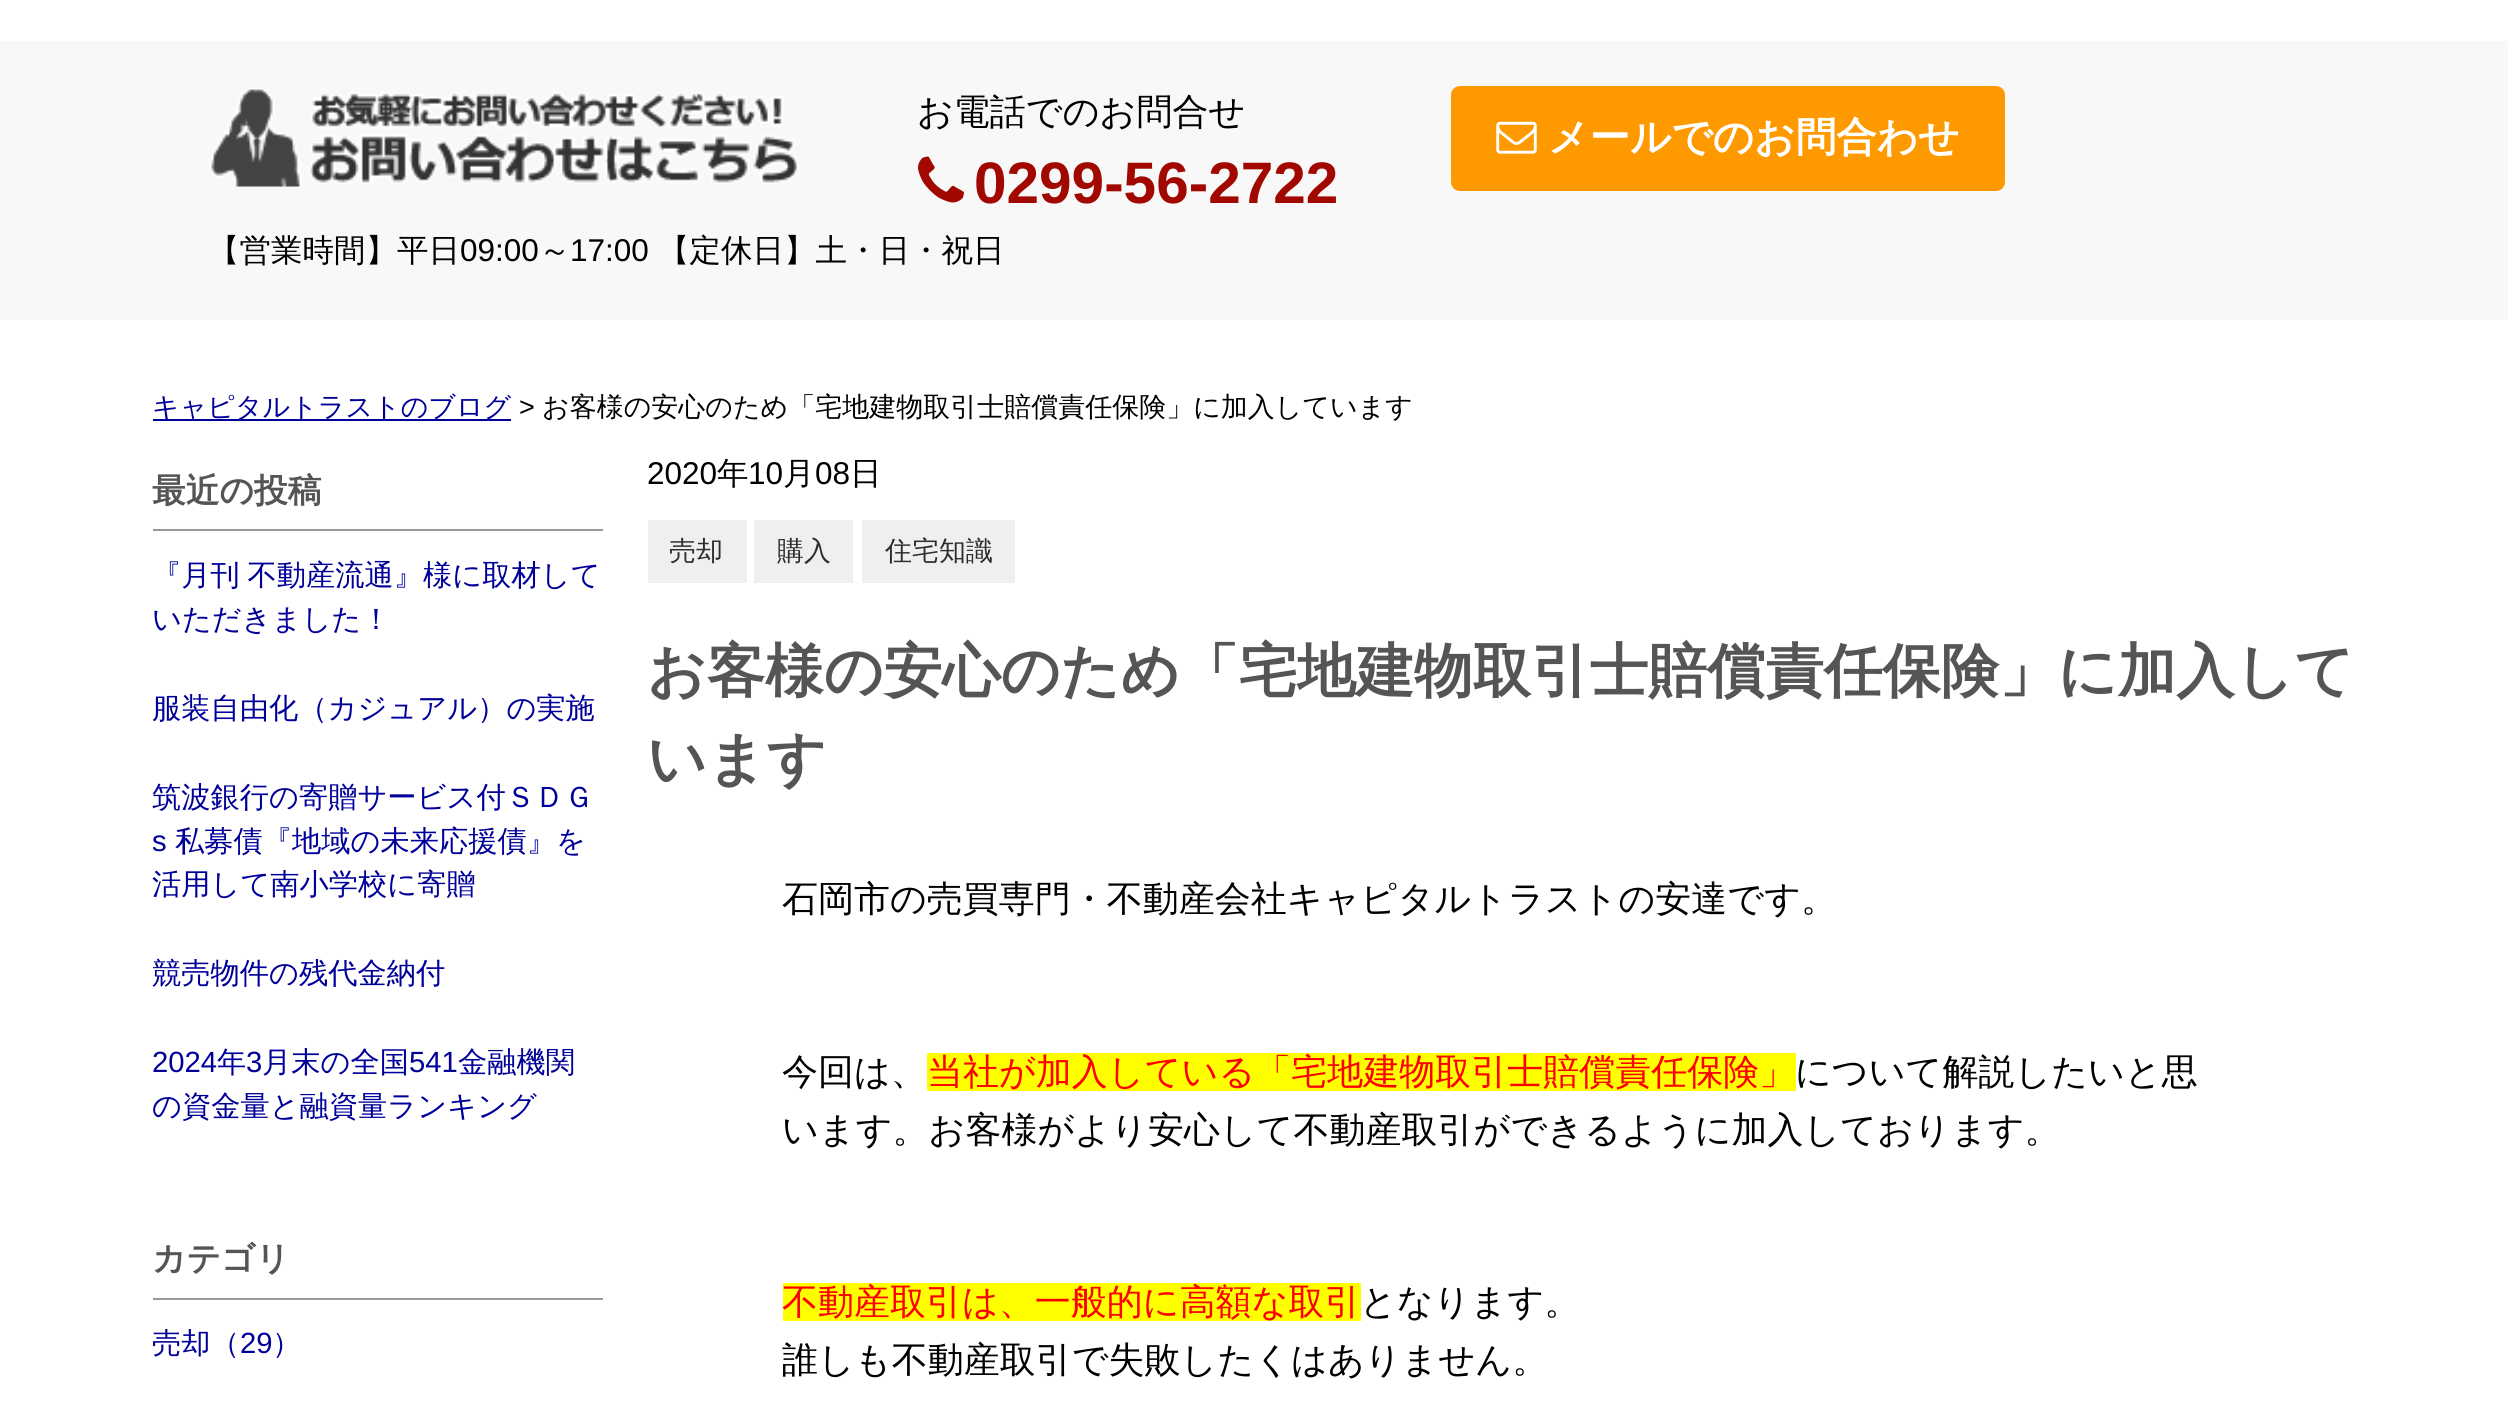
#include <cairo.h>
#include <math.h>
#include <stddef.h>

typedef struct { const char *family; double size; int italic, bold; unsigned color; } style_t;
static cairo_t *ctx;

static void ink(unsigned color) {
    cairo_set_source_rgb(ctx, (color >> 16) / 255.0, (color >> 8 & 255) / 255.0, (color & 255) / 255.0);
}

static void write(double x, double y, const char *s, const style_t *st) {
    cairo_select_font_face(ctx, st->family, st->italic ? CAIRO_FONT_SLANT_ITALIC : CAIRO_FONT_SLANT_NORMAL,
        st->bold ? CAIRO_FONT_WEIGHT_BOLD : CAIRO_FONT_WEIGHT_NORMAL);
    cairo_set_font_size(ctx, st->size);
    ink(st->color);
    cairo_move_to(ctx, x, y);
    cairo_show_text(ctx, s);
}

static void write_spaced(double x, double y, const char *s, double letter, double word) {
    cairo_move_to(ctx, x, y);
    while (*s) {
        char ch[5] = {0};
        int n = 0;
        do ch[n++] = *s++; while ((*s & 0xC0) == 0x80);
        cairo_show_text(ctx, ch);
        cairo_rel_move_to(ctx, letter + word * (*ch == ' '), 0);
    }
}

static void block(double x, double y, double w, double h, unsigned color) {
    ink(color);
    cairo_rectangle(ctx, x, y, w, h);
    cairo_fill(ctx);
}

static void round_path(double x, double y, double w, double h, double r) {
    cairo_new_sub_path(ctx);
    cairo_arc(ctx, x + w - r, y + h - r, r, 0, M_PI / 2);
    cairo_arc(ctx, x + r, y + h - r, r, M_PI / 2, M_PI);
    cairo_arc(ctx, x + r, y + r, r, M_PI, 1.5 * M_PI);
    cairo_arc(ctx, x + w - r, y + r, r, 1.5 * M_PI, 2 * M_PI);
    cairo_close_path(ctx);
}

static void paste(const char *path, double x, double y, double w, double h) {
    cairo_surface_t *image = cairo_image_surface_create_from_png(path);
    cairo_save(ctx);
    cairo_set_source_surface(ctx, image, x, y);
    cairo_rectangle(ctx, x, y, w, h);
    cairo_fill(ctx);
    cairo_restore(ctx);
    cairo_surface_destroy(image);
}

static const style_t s1 = {"WenQuanYi Zen Hei Medium", 36, 0, 0, 0x000000};
static const style_t s2 = {"Liberation Sans", 58.5, 0, 1, 0xa10800};
static const style_t s3 = {"WenQuanYi Zen Hei", 40.5, 0, 1, 0xffffff};
static const style_t s4 = {"WenQuanYi Zen Hei Medium", 31.5, 0, 0, 0x000000};
static const style_t s5 = {"Liberation Sans", 31.5, 0, 0, 0x000000};
static const style_t s6 = {"WenQuanYi Zen Hei Medium", 27, 0, 0, 0x000099};
static const style_t s7 = {"Liberation Sans", 27, 0, 0, 0x000000};
static const style_t s8 = {"WenQuanYi Zen Hei Medium", 27, 0, 0, 0x000000};
static const style_t s9 = {"WenQuanYi Zen Hei", 33.75, 0, 1, 0x555555};
static const style_t s10 = {"WenQuanYi Zen Hei Medium", 29.25, 0, 0, 0x000099};
static const style_t s11 = {"Liberation Sans", 29.25, 0, 0, 0x000099};
static const style_t s12 = {"WenQuanYi Zen Hei Medium", 27, 0, 0, 0x2d2d2d};
static const style_t s13 = {"WenQuanYi Zen Hei", 58.5, 0, 1, 0x555555};
static const style_t s14 = {"WenQuanYi Zen Hei Medium", 36, 0, 0, 0xff0000};

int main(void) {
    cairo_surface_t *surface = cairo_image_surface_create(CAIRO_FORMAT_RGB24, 2508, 1417);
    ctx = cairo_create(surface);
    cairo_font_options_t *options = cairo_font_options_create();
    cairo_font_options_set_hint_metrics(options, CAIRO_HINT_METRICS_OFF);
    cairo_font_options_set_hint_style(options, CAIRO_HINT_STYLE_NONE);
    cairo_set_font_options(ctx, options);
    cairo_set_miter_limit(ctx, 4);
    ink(0xffffff);
    cairo_paint(ctx);
    block(0, 41, 2508, 279, 0xf8f8f8);
    paste("pic1.png", 209, 87, 590, 100);
    write(917, 124, "お電話でのお問合せ", &s1);
    paste("pic2.png", 918, 156, 46, 47);
    write(974, 203, "0299-56-2722", &s2);
    ink(0xff9900);
    round_path(1451, 86, 554, 105, 9);
    cairo_fill(ctx);
    paste("pic3.png", 1496, 121, 41, 33);
    write(1548, 151, "メールでのお問合わせ", &s3);
    write(208, 261, "【営業時間】平日", &s4);
    write(460, 261, "09:00", &s5);
    write(539, 261, "～", &s4);
    write(570, 261, "17:00", &s5);
    write(658, 261, "【定休日】土・日・祝日", &s4);
    block(153, 419, 358, 2, 0x000099);
    write(152, 416, "キャピタルトラストのブログ", &s6);
    write(519, 416, ">", &s7);
    write(542, 416, "お客様の安心のため「宅地建物取引士賠償責任保険」に加入しています", &s8);
    block(153, 529, 450, 2, 0x999999);
    write(152, 502, "最近の投稿", &s9);
    cairo_select_font_face(ctx, "WenQuanYi Zen Hei Medium", CAIRO_FONT_SLANT_NORMAL, CAIRO_FONT_WEIGHT_NORMAL);
    cairo_set_font_size(ctx, 29.25);
    ink(0x000099);
    write_spaced(152, 585, "『月刊 不動産流通』様に取材して", 0, -1);
    write(152, 629, "いただきました！", &s10);
    write(152, 718, "服装自由化（カジュアル）の実施", &s10);
    write(152, 807, "筑波銀行の寄贈サービス付ＳＤＧ", &s10);
    write(152, 851, "s", &s11);
    write(175, 851, "私募債『地域の未来応援債』を", &s10);
    write(152, 894, "活用して南小学校に寄贈", &s10);
    write(152, 983, "競売物件の残代金納付", &s10);
    write(152, 1072, "2024", &s11);
    write(217, 1072, "年", &s10);
    write(246, 1072, "3", &s11);
    write(262, 1072, "月末の全国", &s10);
    write(409, 1072, "541", &s11);
    write(458, 1072, "金融機関", &s10);
    write(152, 1116, "の資金量と融資量ランキング", &s10);
    block(153, 1298, 450, 2, 0x999999);
    write(152, 1270, "カテゴリ", &s9);
    write(152, 1353, "売却（", &s10);
    write(240, 1353, "29", &s11);
    write(272, 1353, "）", &s10);
    write(647, 484, "2020", &s5);
    write(717, 484, "年", &s4);
    write(748, 484, "10", &s5);
    write(783, 484, "月", &s4);
    write(815, 484, "08", &s5);
    write(850, 484, "日", &s4);
    block(648, 520, 99, 63, 0xefefef);
    write(669, 560, "売却", &s12);
    block(754, 520, 99, 63, 0xefefef);
    write(777, 560, "購入", &s12);
    block(862, 520, 153, 63, 0xefefef);
    write(885, 560, "住宅知識", &s12);
    write(647, 691, "お客様の安心のため「宅地建物取引士賠償責任保険」に加入して", &s13);
    write(647, 779, "います", &s13);
    write(782, 911, "石岡市の売買専門・不動産会社キャピタルトラストの安達です。", &s1);
    write(782, 1084, "今回は、", &s1);
    block(927, 1053, 869, 38, 0xffff00);
    write(927, 1084, "当社が加入している「宅地建物取引士賠償責任保険」", &s14);
    write(1795, 1084, "について解説したいと思", &s1);
    write(782, 1142, "います。お客様がより安心して不動産取引ができるように加入しております。", &s1);
    block(783, 1283, 578, 38, 0xffff00);
    write(782, 1314, "不動産取引は、一般的に高額な取引", &s14);
    write(1360, 1314, "となります。", &s1);
    write(782, 1372, "誰しも不動産取引で失敗したくはありません。", &s1);
    cairo_surface_write_to_png(surface, "screenshot.png");
    cairo_font_options_destroy(options);
    cairo_destroy(ctx);
    cairo_surface_destroy(surface);
    return 0;
}
